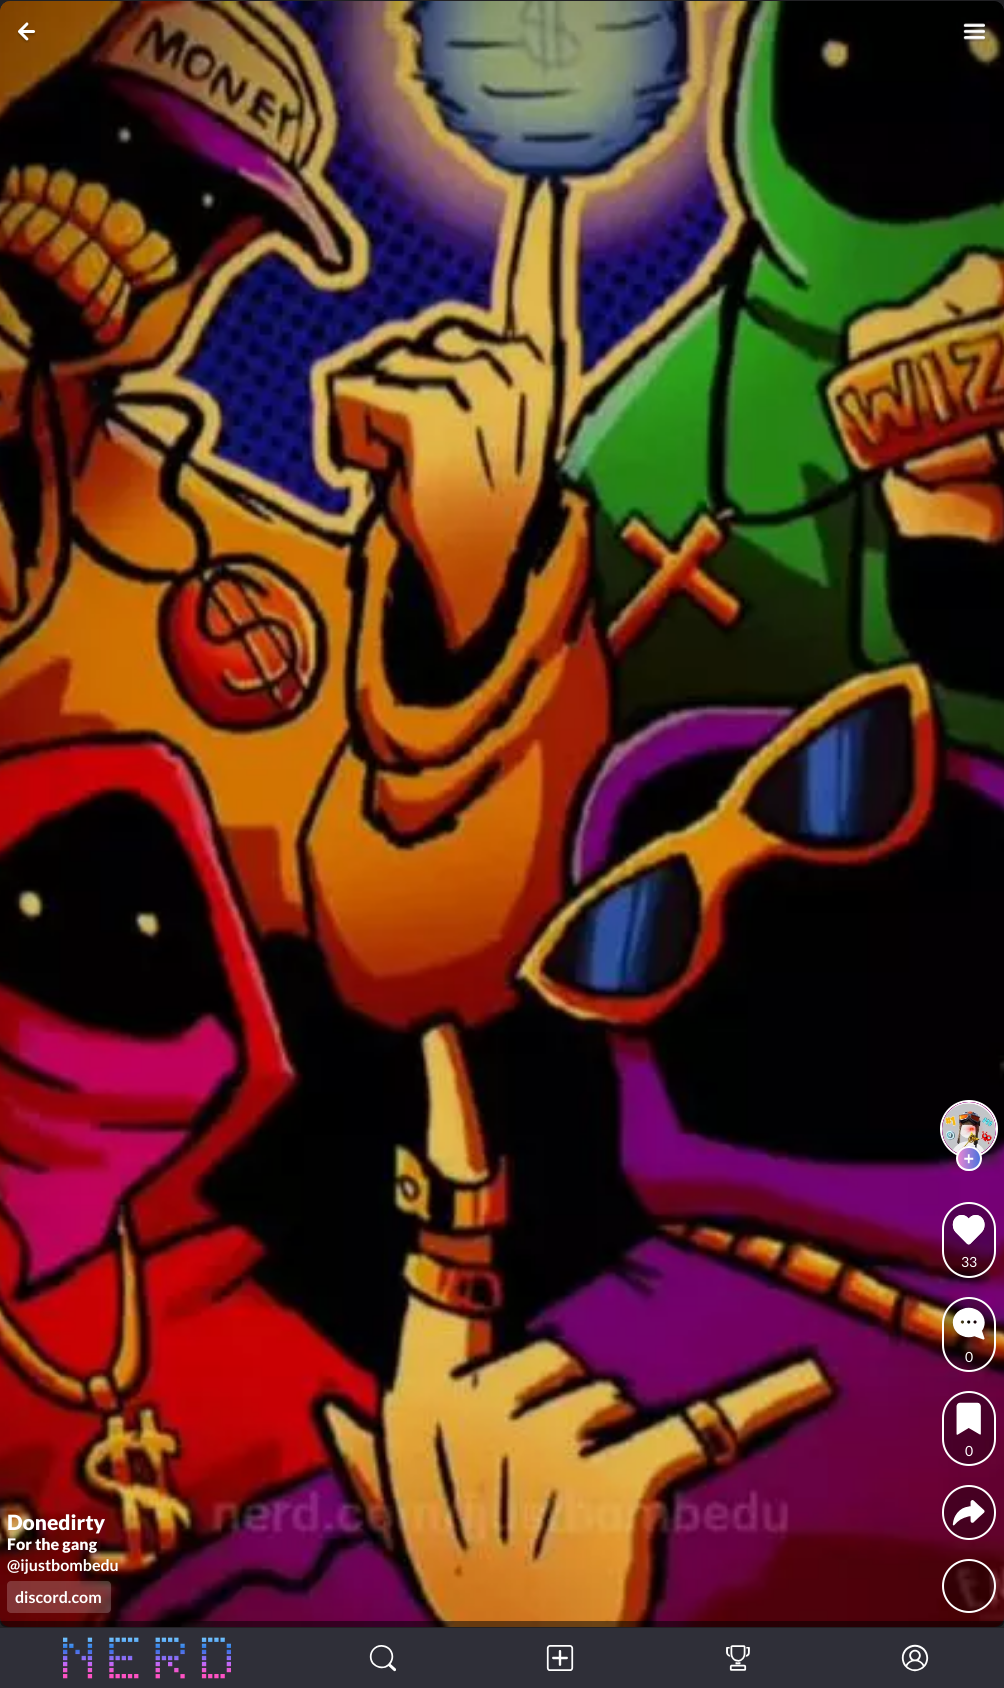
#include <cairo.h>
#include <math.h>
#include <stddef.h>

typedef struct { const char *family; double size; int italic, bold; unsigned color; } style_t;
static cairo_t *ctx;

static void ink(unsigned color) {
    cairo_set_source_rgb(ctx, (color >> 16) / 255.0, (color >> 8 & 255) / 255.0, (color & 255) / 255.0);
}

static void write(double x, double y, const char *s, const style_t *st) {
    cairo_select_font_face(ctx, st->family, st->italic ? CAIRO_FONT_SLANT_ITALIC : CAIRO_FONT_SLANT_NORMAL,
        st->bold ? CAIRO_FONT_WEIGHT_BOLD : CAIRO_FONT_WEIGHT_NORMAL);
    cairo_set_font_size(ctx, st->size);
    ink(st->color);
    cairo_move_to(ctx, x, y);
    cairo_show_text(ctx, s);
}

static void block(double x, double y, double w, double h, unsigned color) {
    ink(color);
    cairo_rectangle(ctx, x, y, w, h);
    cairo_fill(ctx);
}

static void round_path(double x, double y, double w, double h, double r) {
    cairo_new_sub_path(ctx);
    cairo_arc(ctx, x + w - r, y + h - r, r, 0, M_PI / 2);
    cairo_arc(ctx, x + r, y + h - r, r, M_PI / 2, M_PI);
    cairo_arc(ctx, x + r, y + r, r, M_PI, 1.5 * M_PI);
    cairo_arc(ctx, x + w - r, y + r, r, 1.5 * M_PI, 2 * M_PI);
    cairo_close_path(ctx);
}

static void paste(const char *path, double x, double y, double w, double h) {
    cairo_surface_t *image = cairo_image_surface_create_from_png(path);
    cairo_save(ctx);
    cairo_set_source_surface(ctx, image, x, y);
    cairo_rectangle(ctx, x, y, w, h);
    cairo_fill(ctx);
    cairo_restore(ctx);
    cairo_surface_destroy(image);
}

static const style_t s1 = {"Lato", 14, 0, 0, 0xffffff};
static const style_t s2 = {"Lato Black", 21, 0, 0, 0xffffff};
static const style_t s3 = {"Lato Black", 16, 0, 0, 0xffffff};
static const style_t s4 = {"Lato", 16, 0, 1, 0xffffff};

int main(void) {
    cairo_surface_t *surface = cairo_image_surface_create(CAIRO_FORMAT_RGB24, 1004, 1688);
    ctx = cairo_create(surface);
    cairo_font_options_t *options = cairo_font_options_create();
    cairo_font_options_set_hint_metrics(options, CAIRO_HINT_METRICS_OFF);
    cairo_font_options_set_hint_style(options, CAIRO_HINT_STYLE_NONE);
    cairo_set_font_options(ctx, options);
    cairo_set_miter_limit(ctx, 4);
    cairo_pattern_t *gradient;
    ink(0x212124);
    cairo_paint(ctx);
    paste("pic1.png", 0, 1, 1004, 1626);
    paste("pic2.png", 0, 1, 1004, 1626);
    cairo_set_source_rgba(ctx, 0, 0, 0, 0.1);
    round_path(0, 1, 1004, 1626, 11);
    cairo_fill(ctx);
    paste("pic3.png", 17, 22, 19, 21);
    paste("pic4.png", 963, 23, 23, 19);
    cairo_arc(ctx, 969, 1129, 28, 0, 2 * M_PI);
    ink(0xffffff);
    cairo_stroke(ctx);
    ink(0xc800a5);
    cairo_arc(ctx, 969, 1129, 27, 0, 2 * M_PI);
    cairo_fill(ctx);
    paste("pic5.png", 942, 1102, 54, 52);
    cairo_save(ctx);
    round_path(956, 1146, 26, 25, 12.5);
    cairo_clip(ctx);
    gradient = cairo_pattern_create_linear(958, 1159, 980, 1159);
    cairo_pattern_add_color_stop_rgba(gradient, 0, 0.918, 0.529, 0.827, 1);
    cairo_pattern_add_color_stop_rgba(gradient, 1, 0.29, 0.451, 0.867, 1);
    cairo_set_source(ctx, gradient);
    cairo_pattern_destroy(gradient);
    cairo_rectangle(ctx, 958, 1146, 22, 25);
    cairo_fill(ctx);
    cairo_restore(ctx);
    round_path(957, 1147, 24, 23, 11.5);
    ink(0xffffff);
    cairo_stroke(ctx);
    paste("pic6.png", 964, 1154, 10, 10);
    cairo_set_source_rgba(ctx, 0, 0, 0, 0.3);
    round_path(943, 1203, 52, 74, 26);
    cairo_fill_preserve(ctx);
    ink(0xffffff);
    cairo_stroke(ctx);
    paste("pic7.png", 952, 1215, 33, 30);
    write(961, 1267, "33", &s1);
    cairo_set_source_rgba(ctx, 0, 0, 0, 0.3);
    round_path(943, 1298, 52, 73, 26);
    cairo_fill_preserve(ctx);
    ink(0xffffff);
    cairo_stroke(ctx);
    paste("pic8.png", 952, 1307, 33, 33);
    write(965, 1362, "0", &s1);
    cairo_set_source_rgba(ctx, 0, 0, 0, 0.3);
    round_path(943, 1392, 52, 73, 26);
    cairo_fill_preserve(ctx);
    ink(0xffffff);
    cairo_stroke(ctx);
    paste("pic9.png", 956, 1402, 25, 33);
    write(965, 1456, "0", &s1);
    cairo_set_source_rgba(ctx, 0, 0, 0, 0.3);
    round_path(943, 1486, 52, 53, 26);
    cairo_fill_preserve(ctx);
    ink(0xffffff);
    cairo_stroke(ctx);
    paste("pic10.png", 952, 1500, 33, 26);
    cairo_set_source_rgba(ctx, 0, 0, 0, 0.3);
    cairo_arc(ctx, 969, 1586, 26, 0, 2 * M_PI);
    cairo_fill_preserve(ctx);
    ink(0xffffff);
    cairo_stroke(ctx);
    write(7, 1530, "Donedirty", &s2);
    write(7, 1550, "For the gang", &s3);
    write(7, 1571, "@ijustbombedu", &s4);
    cairo_set_source_rgba(ctx, 1, 1, 1, 0.2);
    round_path(7, 1581, 104, 32, 4);
    cairo_fill(ctx);
    write(15, 1603, "discord.com", &s4);
    cairo_set_source_rgba(ctx, 0, 0, 0, 0.5);
    cairo_new_path(ctx);
    cairo_move_to(ctx, 0, 1621);
    cairo_line_to(ctx, 1004, 1621);
    cairo_curve_to(ctx, 1004, 1624.5, 1001.5, 1627, 998, 1627);
    cairo_line_to(ctx, 6, 1627);
    cairo_curve_to(ctx, 2.5, 1627, 0, 1624.5, 0, 1621);
    cairo_close_path(ctx);
    cairo_fill(ctx);
    block(0, 1628, 1004, 60, 0x2f2f38);
    paste("pic11.png", 63, 1637, 168, 42);
    paste("pic12.png", 369, 1645, 27, 27);
    paste("pic13.png", 546, 1645, 28, 26);
    paste("pic14.png", 726, 1645, 24, 26);
    paste("pic15.png", 901, 1644, 28, 28);
    cairo_surface_write_to_png(surface, "screenshot.png");
    cairo_font_options_destroy(options);
    cairo_destroy(ctx);
    cairo_surface_destroy(surface);
    return 0;
}
